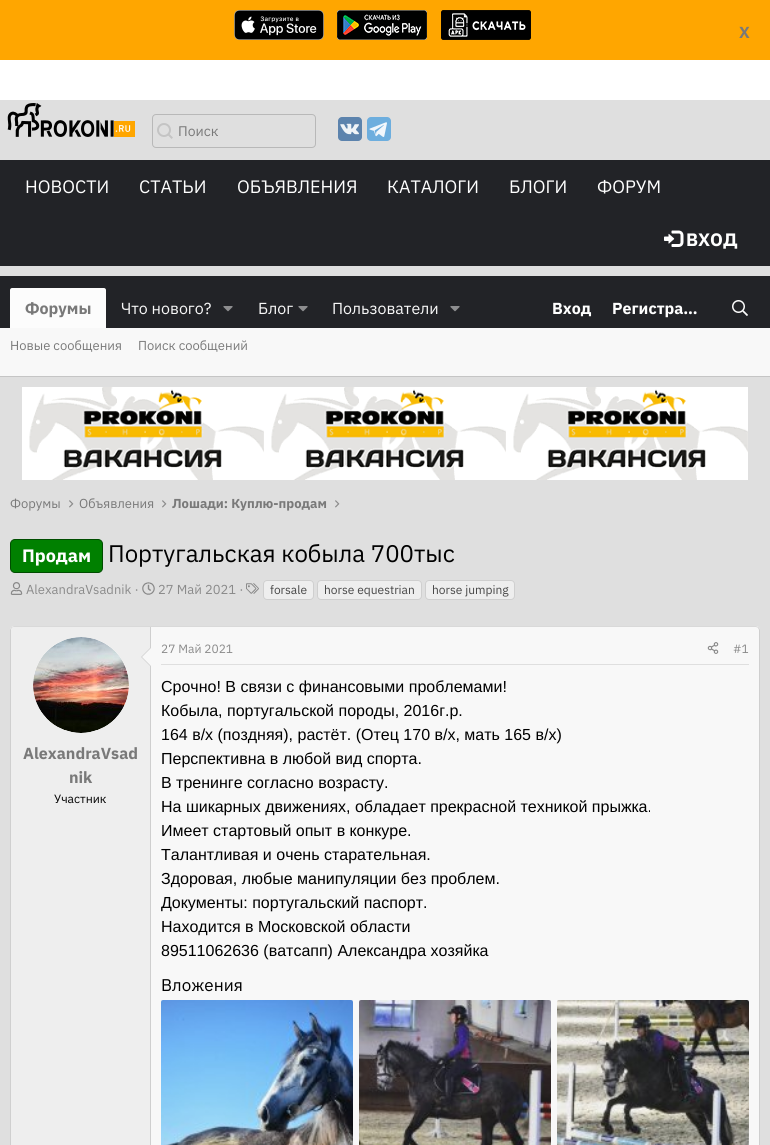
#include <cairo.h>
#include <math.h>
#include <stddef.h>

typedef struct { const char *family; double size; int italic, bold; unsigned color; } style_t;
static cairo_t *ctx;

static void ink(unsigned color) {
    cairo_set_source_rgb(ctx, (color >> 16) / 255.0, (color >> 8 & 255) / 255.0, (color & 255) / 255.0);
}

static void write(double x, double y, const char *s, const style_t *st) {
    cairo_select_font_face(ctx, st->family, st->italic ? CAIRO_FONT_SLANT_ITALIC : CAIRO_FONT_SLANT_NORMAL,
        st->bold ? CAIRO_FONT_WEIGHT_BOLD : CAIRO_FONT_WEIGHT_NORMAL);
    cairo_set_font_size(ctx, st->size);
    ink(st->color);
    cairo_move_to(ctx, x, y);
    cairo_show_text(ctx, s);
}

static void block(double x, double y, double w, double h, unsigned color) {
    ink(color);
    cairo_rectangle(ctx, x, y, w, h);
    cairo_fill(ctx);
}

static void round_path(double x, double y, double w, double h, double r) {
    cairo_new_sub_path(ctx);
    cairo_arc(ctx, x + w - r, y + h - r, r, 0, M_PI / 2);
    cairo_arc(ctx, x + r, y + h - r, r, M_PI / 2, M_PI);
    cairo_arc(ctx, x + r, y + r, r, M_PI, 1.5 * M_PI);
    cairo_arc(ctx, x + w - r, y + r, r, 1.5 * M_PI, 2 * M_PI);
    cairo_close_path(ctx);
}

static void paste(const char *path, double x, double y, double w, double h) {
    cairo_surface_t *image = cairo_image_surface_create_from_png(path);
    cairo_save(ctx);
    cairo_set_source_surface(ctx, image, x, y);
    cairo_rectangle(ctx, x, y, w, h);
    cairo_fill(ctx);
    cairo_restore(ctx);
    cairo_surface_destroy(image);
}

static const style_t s1 = {"IBM Plex Sans", 16, 0, 1, 0x797979};
static const style_t s2 = {"IBM Plex Sans", 14, 0, 0, 0x797979};
static const style_t s3 = {"IBM Plex Sans", 18, 0, 0, 0xffffff};
static const style_t s4 = {"IBM Plex Sans", 18, 0, 1, 0xffffff};
static const style_t s5 = {"IBM Plex Sans", 16, 0, 0, 0xf8f8f8};
static const style_t s6 = {"IBM Plex Sans", 16, 0, 1, 0xffffff};
static const style_t s7 = {"IBM Plex Sans", 13, 0, 0, 0x797979};
static const style_t s8 = {"IBM Plex Sans", 13, 0, 1, 0x797979};
static const style_t s9 = {"IBM Plex Sans", 24, 0, 0, 0x000000};
static const style_t s10 = {"IBM Plex Sans", 13, 0, 0, 0x8a8a8a};
static const style_t s11 = {"IBM Plex Sans", 12, 0, 0, 0x454545};
static const style_t s12 = {"IBM Plex Sans", 12, 0, 0, 0x000000};
static const style_t s13 = {"IBM Plex Sans", 12, 0, 0, 0x8a8a8a};
static const style_t s14 = {"Liberation Sans", 16, 0, 0, 0x000000};
static const style_t s15 = {"IBM Plex Sans", 17, 0, 0, 0x000000};

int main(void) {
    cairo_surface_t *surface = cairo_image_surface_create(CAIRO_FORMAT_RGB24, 770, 1145);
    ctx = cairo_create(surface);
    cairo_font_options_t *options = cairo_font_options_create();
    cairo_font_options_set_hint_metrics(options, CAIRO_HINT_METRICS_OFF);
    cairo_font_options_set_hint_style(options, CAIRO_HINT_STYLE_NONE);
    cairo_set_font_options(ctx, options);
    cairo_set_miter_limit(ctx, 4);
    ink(0xffffff);
    cairo_paint(ctx);
    block(0, 0, 770, 60, 0xffa600);
    paste("pic1.png", 234, 10, 90, 30);
    paste("pic2.png", 337, 10, 90, 30);
    paste("pic3.png", 441, 10, 90, 30);
    write(739, 38, "X", &s1);
    block(0, 100, 770, 1045, 0xdfdfdf);
    paste("pic4.png", 7, 103, 128, 34);
    paste("pic5.png", 157, 123, 16, 16);
    round_path(152.5, 114.5, 163, 33, 3.5);
    ink(0xb8b8b8);
    cairo_set_line_width(ctx, 1);
    cairo_stroke(ctx);
    write(178, 136, "Поиск", &s2);
    paste("pic6.png", 338, 117, 24, 24);
    paste("pic7.png", 367, 117, 24, 24);
    block(0, 160, 770, 106, 0x222327);
    write(25, 193, "НОВОСТИ", &s3);
    write(139, 193, "СТАТЬИ", &s3);
    write(237, 193, "ОБЪЯВЛЕНИЯ", &s3);
    write(387, 193, "КАТАЛОГИ", &s3);
    write(509, 193, "БЛОГИ", &s3);
    write(597, 193, "ФОРУМ", &s3);
    paste("pic8.png", 664, 230, 20, 17);
    write(686, 246, "ВХОД", &s4);
    block(0, 276, 770, 52, 0x222327);
    ink(0xfcfcfc);
    cairo_new_path(ctx);
    cairo_move_to(ctx, 12, 288);
    cairo_line_to(ctx, 104, 288);
    cairo_curve_to(ctx, 105, 288, 106, 289, 106, 290);
    cairo_line_to(ctx, 106, 328);
    cairo_line_to(ctx, 10, 328);
    cairo_line_to(ctx, 10, 290);
    cairo_curve_to(ctx, 10, 289, 11, 288, 12, 288);
    cairo_close_path(ctx);
    cairo_fill(ctx);
    write(25, 314, "Форумы", &s1);
    write(121, 314, "Что нового?", &s5);
    paste("pic9.png", 223, 306, 10, 6);
    write(258, 314, "Блог", &s5);
    paste("pic9.png", 298, 306, 10, 6);
    write(332, 314, "Пользователи", &s5);
    paste("pic9.png", 450, 306, 10, 6);
    write(552, 314, "Вход", &s6);
    write(612, 314, "Регистра…", &s6);
    paste("pic10.png", 732, 300, 16, 16);
    block(0, 328, 770, 48, 0xf8f8f8);
    block(0, 376, 770, 1, 0xc5c5c5);
    write(10, 350, "Новые сообщения", &s7);
    write(138, 350, "Поиск сообщений", &s7);
    paste("pic11.png", 22, 387, 242, 93);
    paste("pic12.png", 264, 387, 242, 93);
    paste("pic13.png", 506, 387, 242, 93);
    write(10, 508, "Форумы", &s7);
    paste("pic14.png", 69, 500, 5, 8);
    write(79, 508, "Объявления", &s7);
    paste("pic14.png", 162, 500, 5, 8);
    write(172, 508, "Лошади: Куплю-продам", &s8);
    paste("pic14.png", 335, 500, 5, 8);
    ink(0x008000);
    round_path(10.5, 539.5, 92, 33, 4.5);
    cairo_fill_preserve(ctx);
    ink(0x004d00);
    cairo_stroke(ctx);
    write(22, 562, "Продам", &s4);
    write(108, 562, "Португальская кобыла 700тыс", &s9);
    paste("pic15.png", 10, 582, 13, 13);
    write(26, 594, "AlexandraVsadnik ·", &s10);
    paste("pic16.png", 142, 582, 13, 13);
    write(158, 594, "27 Май 2021 ·", &s10);
    paste("pic17.png", 246, 583, 13, 11);
    ink(0xeeeeee);
    round_path(263.5, 580.5, 50, 19, 3.5);
    cairo_fill_preserve(ctx);
    ink(0xcfcfcf);
    cairo_stroke(ctx);
    write(270, 594, "forsale", &s11);
    ink(0xeeeeee);
    round_path(317.5, 580.5, 104, 19, 3.5);
    cairo_fill_preserve(ctx);
    ink(0xcfcfcf);
    cairo_stroke(ctx);
    write(324, 594, "horse equestrian", &s11);
    ink(0xeeeeee);
    round_path(425.5, 580.5, 89, 19, 3.5);
    cairo_fill_preserve(ctx);
    ink(0xcfcfcf);
    cairo_stroke(ctx);
    write(432, 594, "horse jumping", &s11);
    ink(0xf8f8f8);
    round_path(10, 626, 750, 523, 4);
    cairo_fill(ctx);
    cairo_new_path(ctx);
    cairo_move_to(ctx, 11.5, 627.5);
    cairo_line_to(ctx, 14, 626.5);
    cairo_line_to(ctx, 756, 626.5);
    cairo_line_to(ctx, 758.5, 627.5);
    ink(0xd9d9d9);
    cairo_stroke(ctx);
    cairo_new_path(ctx);
    cairo_move_to(ctx, 758.5, 627.5);
    cairo_line_to(ctx, 759.5, 630);
    cairo_line_to(ctx, 759.5, 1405);
    cairo_line_to(ctx, 758.5, 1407.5);
    ink(0xcfcfcf);
    cairo_stroke(ctx);
    cairo_new_path(ctx);
    cairo_move_to(ctx, 11.5, 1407.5);
    cairo_line_to(ctx, 10.5, 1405);
    cairo_line_to(ctx, 10.5, 630);
    cairo_line_to(ctx, 11.5, 627.5);
    cairo_stroke(ctx);
    ink(0xeeeeee);
    cairo_new_path(ctx);
    cairo_move_to(ctx, 14, 627);
    cairo_line_to(ctx, 151, 627);
    cairo_line_to(ctx, 151, 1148);
    cairo_line_to(ctx, 14, 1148);
    cairo_curve_to(ctx, 12.5, 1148, 11, 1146.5, 11, 1145);
    cairo_line_to(ctx, 11, 630);
    cairo_curve_to(ctx, 11, 628.5, 12.5, 627, 14, 627);
    cairo_close_path(ctx);
    cairo_fill(ctx);
    block(150, 627, 1, 518, 0xcfcfcf);
    ink(0xf8f8f8);
    cairo_arc(ctx, 81, 685, 48, 0, 2 * M_PI);
    cairo_fill(ctx);
    paste("pic18.png", 33, 637, 96, 96);
    ink(0xcfcfcf);
    cairo_new_path(ctx);
    cairo_move_to(ctx, 151, 647);
    cairo_line_to(ctx, 151, 667);
    cairo_line_to(ctx, 141, 657);
    cairo_close_path(ctx);
    cairo_fill(ctx);
    ink(0xf8f8f8);
    cairo_new_path(ctx);
    cairo_move_to(ctx, 151, 648);
    cairo_line_to(ctx, 151, 666);
    cairo_line_to(ctx, 142, 657);
    cairo_close_path(ctx);
    cairo_fill(ctx);
    write(23, 759, "AlexandraVsad", &s1);
    write(69, 783, "nik", &s1);
    write(54, 803, "Участник", &s12);
    block(161, 664, 588, 1, 0xdfdfdf);
    write(161, 653, "27 Май 2021", &s13);
    paste("pic19.png", 707, 642, 12, 12);
    write(733, 653, "#1", &s13);
    write(161, 692, "Срочно! В связи с финансовыми проблемами!", &s14);
    write(161, 716, "Кобыла, португальской породы, 2016г.р.", &s14);
    write(161, 740, "164 в/х (поздняя), растёт. (Отец 170 в/х, мать 165 в/х)", &s14);
    write(161, 764, "Перспективна в любой вид спорта.", &s14);
    write(161, 788, "В тренинге согласно возрасту.", &s14);
    write(161, 812, "На шикарных движениях, обладает прекрасной техникой прыжка.", &s14);
    write(161, 836, "Имеет стартовый опыт в конкуре.", &s14);
    write(161, 860, "Талантливая и очень старательная.", &s14);
    write(161, 884, "Здоровая, любые манипуляции без проблем.", &s14);
    write(161, 908, "Документы: португальский паспорт.", &s14);
    write(161, 932, "Находится в Московской области", &s14);
    write(161, 956, "89511062636 (ватсапп) Александра хозяйка", &s14);
    write(161, 991, "Вложения", &s15);
    paste("pic20.png", 161, 1000, 192, 145);
    paste("pic21.png", 359, 1000, 192, 145);
    paste("pic22.png", 557, 1000, 192, 145);
    cairo_surface_write_to_png(surface, "screenshot.png");
    cairo_font_options_destroy(options);
    cairo_destroy(ctx);
    cairo_surface_destroy(surface);
    return 0;
}
